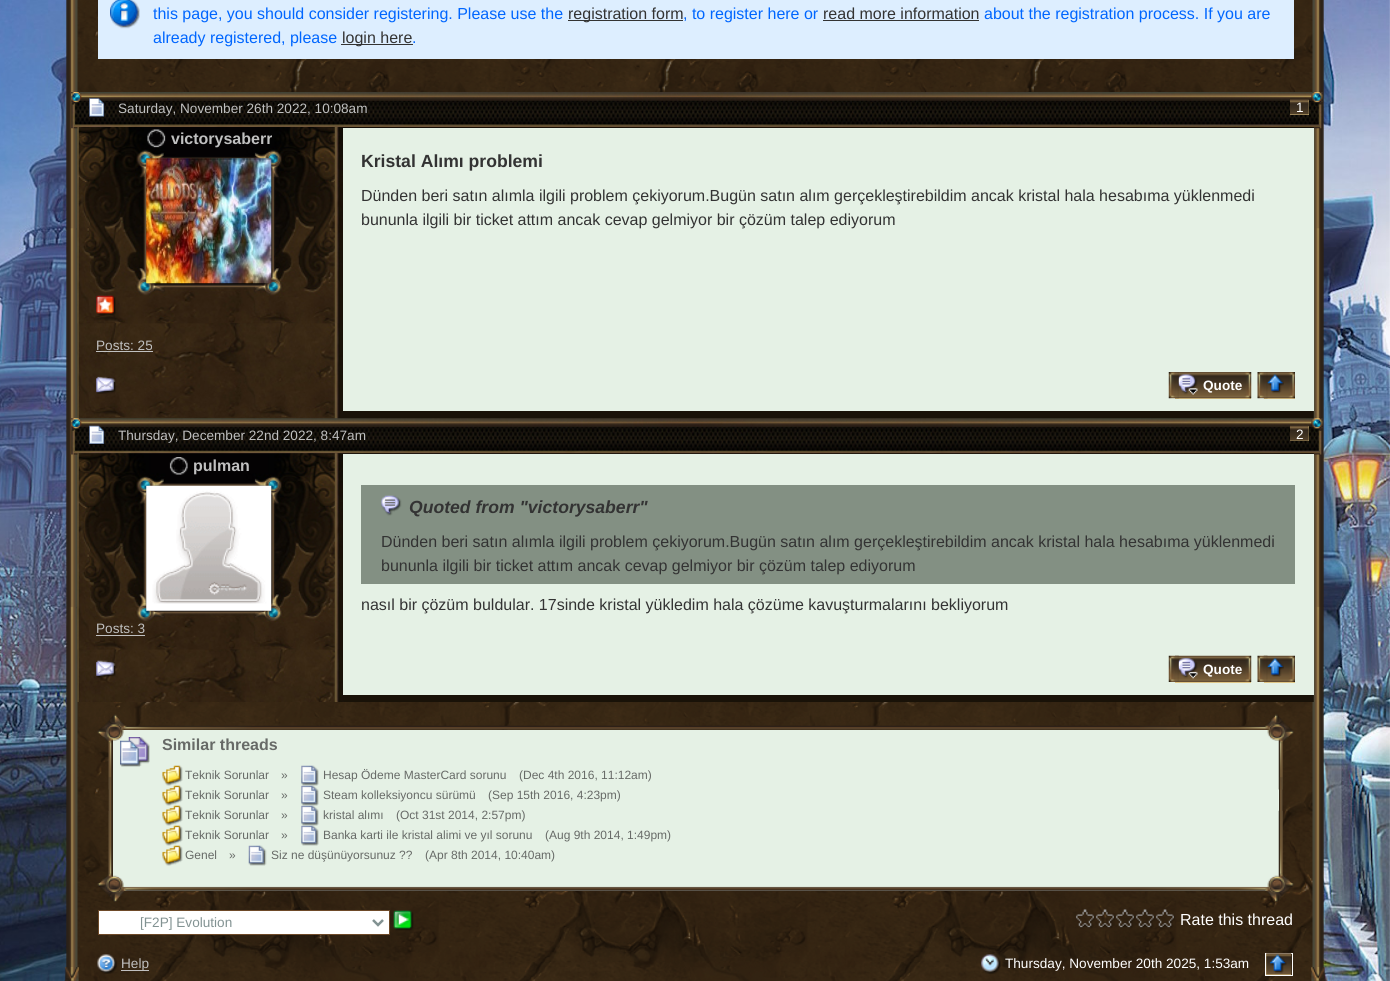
#include <cairo.h>
#include <math.h>
#include <stddef.h>

typedef struct { const char *family; double size; int italic, bold; unsigned color; } style_t;
static cairo_t *ctx;

static void ink(unsigned color) {
    cairo_set_source_rgb(ctx, (color >> 16) / 255.0, (color >> 8 & 255) / 255.0, (color & 255) / 255.0);
}

static void write(double x, double y, const char *s, const style_t *st) {
    cairo_select_font_face(ctx, st->family, st->italic ? CAIRO_FONT_SLANT_ITALIC : CAIRO_FONT_SLANT_NORMAL,
        st->bold ? CAIRO_FONT_WEIGHT_BOLD : CAIRO_FONT_WEIGHT_NORMAL);
    cairo_set_font_size(ctx, st->size);
    ink(st->color);
    cairo_move_to(ctx, x, y);
    cairo_show_text(ctx, s);
}

static void block(double x, double y, double w, double h, unsigned color) {
    ink(color);
    cairo_rectangle(ctx, x, y, w, h);
    cairo_fill(ctx);
}

static void paste(const char *path, double x, double y, double w, double h) {
    cairo_surface_t *image = cairo_image_surface_create_from_png(path);
    cairo_save(ctx);
    cairo_set_source_surface(ctx, image, x, y);
    cairo_rectangle(ctx, x, y, w, h);
    cairo_fill(ctx);
    cairo_restore(ctx);
    cairo_surface_destroy(image);
}

static const style_t s1 = {"Liberation Sans", 16, 0, 0, 0x0066ff};
static const style_t s2 = {"Liberation Sans", 16, 0, 0, 0x333333};
static const style_t s3 = {"Liberation Sans", 13.6, 0, 0, 0xc0c0c0};
static const style_t s4 = {"Liberation Sans", 13.6, 0, 0, 0xffffff};
static const style_t s5 = {"Liberation Sans", 16, 0, 1, 0xc0c0c0};
static const style_t s6 = {"Liberation Sans", 17.6, 0, 1, 0x333333};
static const style_t s7 = {"Liberation Sans", 13.6, 0, 1, 0xffffff};
static const style_t s8 = {"Liberation Sans", 17.6, 1, 1, 0x333333};
static const style_t s9 = {"Liberation Sans", 16, 0, 1, 0x676a67};
static const style_t s10 = {"Liberation Sans", 12, 0, 0, 0x676a67};
static const style_t s11 = {"Liberation Sans", 13.6, 0, 0, 0x829292};
static const style_t s12 = {"Liberation Sans", 16, 0, 0, 0xffffff};

int main(void) {
    cairo_surface_t *surface = cairo_image_surface_create(CAIRO_FORMAT_RGB24, 1390, 981);
    ctx = cairo_create(surface);
    cairo_font_options_t *options = cairo_font_options_create();
    cairo_font_options_set_hint_metrics(options, CAIRO_HINT_METRICS_OFF);
    cairo_font_options_set_hint_style(options, CAIRO_HINT_STYLE_NONE);
    cairo_set_font_options(ctx, options);
    cairo_set_miter_limit(ctx, 4);
    ink(0xffffff);
    cairo_paint(ctx);
    paste("pic1.png", 0, 0, 1390, 981);
    paste("pic2.png", 65, 0, 1260, 981);
    block(98, 0, 1196, 59, 0xddeeff);
    paste("pic3.png", 110, 0, 30, 29);
    write(153, 19, "this page, you should consider registering. Please use the", &s1);
    block(568, 20, 115, 1, 0x333333);
    write(568, 19, "registration form", &s2);
    write(683, 19, ", to register here or", &s1);
    write(823, 19, "read more information", &s2);
    block(823, 20, 156, 1, 0x333333);
    write(984, 19, "about the registration process. If you are", &s1);
    write(153, 43, "already registered, please", &s1);
    block(341, 44, 72, 1, 0x333333);
    write(342, 43, "login here", &s2);
    write(412, 43, ".", &s1);
    paste("pic4.png", 77, 128, 1237, 291);
    paste("pic5.png", 71, 92, 1252, 37);
    paste("pic6.png", 89, 98, 16, 20);
    write(118, 113, "Saturday, November 26th 2022, 10:08am", &s3);
    block(1290, 100, 19, 15, 0xdfc584);
    paste("pic7.png", 1290, 99, 19, 16);
    write(1296, 112, "1", &s4);
    paste("pic8.png", 77, 127, 1237, 197);
    paste("pic9.png", 147, 129, 19, 19);
    write(171, 144, "victorysaberr", &s5);
    paste("pic10.png", 146, 158, 126, 126);
    paste("pic11.png", 96, 295, 20, 21);
    write(96, 350, "Posts: 25", &s3);
    block(96, 351, 57, 1, 0xc0c0c0);
    paste("pic12.png", 96, 376, 20, 18);
    block(343, 128, 971, 283, 0xe5f1e5);
    write(361, 167, "Kristal Alımı problemi", &s6);
    write(361, 201, "Dünden beri satın alımla ilgili problem çekiyorum.Bugün satın alım gerçekleştirebildim ancak kristal hala hesabıma yüklenmedi", &s2);
    write(361, 225, "bununla ilgili bir ticket attım ancak cevap gelmiyor bir çözüm talep ediyorum", &s2);
    block(1175, 398, 76, 1, 0xdfc584);
    paste("pic13.png", 1175, 372, 77, 27);
    paste("pic15.png", 1178, 374, 20, 21);
    paste("pic14.png", 1168, 372, 11, 27);
    write(1203, 390, "Quote", &s7);
    block(1264, 398, 31, 1, 0xdfc584);
    paste("pic16.png", 1263, 372, 32, 27);
    paste("pic18.png", 1267, 374, 17, 20);
    paste("pic17.png", 1257, 372, 11, 27);
    paste("pic19.png", 77, 418, 1237, 284);
    paste("pic20.png", 71, 418, 1252, 37);
    paste("pic21.png", 89, 425, 16, 20);
    write(118, 440, "Thursday, December 22nd 2022, 8:47am", &s3);
    block(1290, 426, 19, 15, 0xdfc584);
    paste("pic22.png", 1290, 425, 19, 16);
    write(1296, 439, "2", &s4);
    paste("pic23.png", 77, 453, 1237, 197);
    paste("pic24.png", 169, 457, 19, 18);
    write(193, 471, "pulman", &s5);
    paste("pic25.png", 146, 485, 126, 126);
    write(96, 633, "Posts: 3", &s3);
    block(96, 635, 49, 1, 0xc0c0c0);
    paste("pic26.png", 96, 660, 20, 18);
    block(343, 454, 971, 241, 0xe5f1e5);
    block(361, 485, 934, 99, 0x839083);
    paste("pic27.png", 381, 495, 21, 21);
    write(409, 513, "Quoted from \"victorysaberr\"", &s8);
    write(381, 547, "Dünden beri satın alımla ilgili problem çekiyorum.Bugün satın alım gerçekleştirebildim ancak kristal hala hesabıma yüklenmedi", &s2);
    write(381, 571, "bununla ilgili bir ticket attım ancak cevap gelmiyor bir çözüm talep ediyorum", &s2);
    write(361, 610, "nasıl bir çözüm buldular. 17sinde kristal yükledim hala çözüme kavuşturmalarını bekliyorum", &s2);
    block(1175, 682, 76, 1, 0xdfc584);
    paste("pic28.png", 1175, 655, 77, 27);
    paste("pic30.png", 1178, 658, 20, 21);
    paste("pic29.png", 1168, 655, 11, 27);
    write(1203, 674, "Quote", &s7);
    block(1264, 682, 31, 1, 0xdfc584);
    paste("pic31.png", 1263, 655, 32, 27);
    paste("pic33.png", 1267, 658, 17, 19);
    paste("pic32.png", 1257, 655, 11, 27);
    paste("pic34.png", 108, 739, 1175, 139);
    block(113, 730, 1166, 161, 0xe5f1e5);
    paste("pic35.png", 97, 714, 1197, 76);
    paste("pic36.png", 120, 737, 30, 30);
    paste("pic37.png", 97, 810, 1197, 92);
    write(162, 750, "Similar threads", &s9);
    paste("pic38.png", 162, 765, 21, 21);
    write(185, 779, "Teknik Sorunlar", &s10);
    write(281, 779, "»", &s10);
    paste("pic39.png", 301, 765, 18, 21);
    write(323, 779, "Hesap Ödeme MasterCard sorunu", &s10);
    write(519, 779, "(Dec 4th 2016, 11:12am)", &s10);
    paste("pic40.png", 162, 785, 21, 21);
    write(185, 799, "Teknik Sorunlar", &s10);
    write(281, 799, "»", &s10);
    paste("pic41.png", 301, 785, 18, 21);
    write(323, 799, "Steam kolleksiyoncu sürümü", &s10);
    write(488, 799, "(Sep 15th 2016, 4:23pm)", &s10);
    paste("pic40.png", 162, 805, 21, 21);
    write(185, 819, "Teknik Sorunlar", &s10);
    write(281, 819, "»", &s10);
    paste("pic41.png", 301, 805, 18, 21);
    write(323, 819, "kristal alımı", &s10);
    write(396, 819, "(Oct 31st 2014, 2:57pm)", &s10);
    paste("pic40.png", 162, 825, 21, 21);
    write(185, 839, "Teknik Sorunlar", &s10);
    write(281, 839, "»", &s10);
    paste("pic41.png", 301, 825, 18, 21);
    write(323, 839, "Banka karti ile kristal alimi ve yıl sorunu", &s10);
    write(545, 839, "(Aug 9th 2014, 1:49pm)", &s10);
    paste("pic40.png", 162, 845, 21, 21);
    write(185, 859, "Genel", &s10);
    write(229, 859, "»", &s10);
    paste("pic42.png", 248, 845, 19, 21);
    write(271, 859, "Siz ne düşünüyorsunuz ?\077", &s10);
    write(425, 859, "(Apr 8th 2014, 10:40am)", &s10);
    ink(0xffffff);
    cairo_rectangle(ctx, 98.5, 910.5, 291, 24);
    cairo_fill_preserve(ctx);
    ink(0x6e4a29);
    cairo_set_line_width(ctx, 1);
    cairo_stroke(ctx);
    cairo_new_path(ctx);
    cairo_move_to(ctx, 373, 920);
    cairo_line_to(ctx, 378, 925);
    cairo_line_to(ctx, 383, 920);
    ink(0x829292);
    cairo_set_line_width(ctx, 2.5);
    cairo_stroke(ctx);
    write(140, 927, "[F2P] Evolution", &s11);
    paste("pic43.png", 393, 910, 21, 21);
    paste("pic44.png", 1076, 909, 19, 20);
    paste("pic45.png", 1096, 909, 19, 20);
    paste("pic46.png", 1116, 909, 19, 20);
    paste("pic47.png", 1136, 909, 19, 20);
    paste("pic48.png", 1156, 909, 19, 20);
    write(1180, 925, "Rate this thread", &s12);
    paste("pic49.png", 64, 967, 1262, 14);
    paste("pic50.png", 97, 954, 20, 20);
    block(121, 970, 28, 1, 0xc0c0c0);
    write(121, 968, "Help", &s3);
    paste("pic51.png", 981, 954, 20, 20);
    write(1005, 968, "Thursday, November 20th 2025, 1:53am", &s4);
    cairo_rectangle(ctx, 1265.5, 953.5, 27, 22);
    cairo_set_line_width(ctx, 1);
    cairo_stroke(ctx);
    block(1266, 954, 25, 21, 0xdfc584);
    paste("pic52.png", 1266, 953, 26, 22);
    paste("pic53.png", 1269, 954, 18, 20);
    cairo_surface_write_to_png(surface, "screenshot.png");
    cairo_font_options_destroy(options);
    cairo_destroy(ctx);
    cairo_surface_destroy(surface);
    return 0;
}
